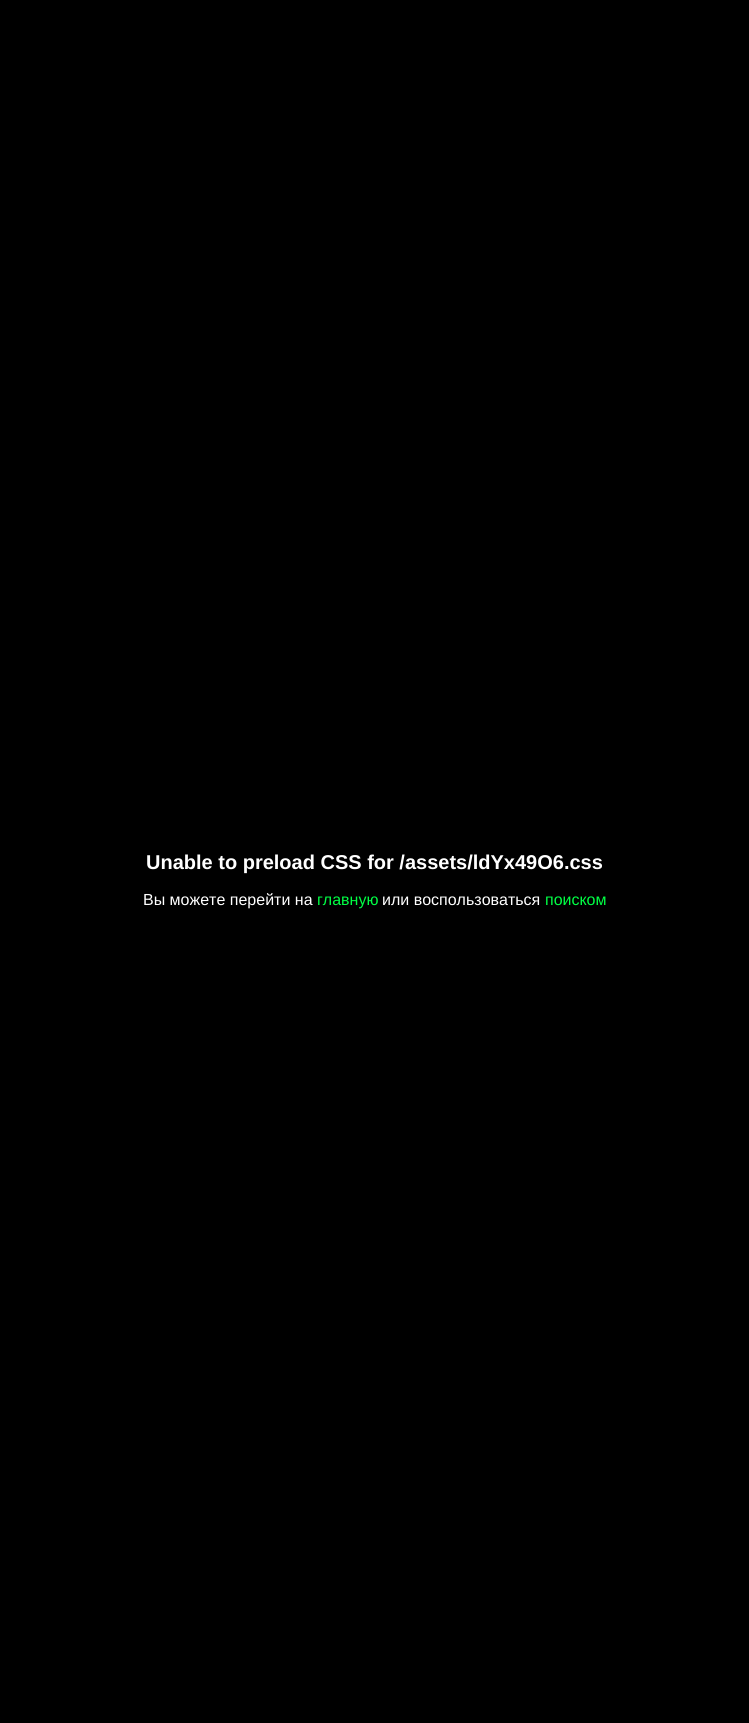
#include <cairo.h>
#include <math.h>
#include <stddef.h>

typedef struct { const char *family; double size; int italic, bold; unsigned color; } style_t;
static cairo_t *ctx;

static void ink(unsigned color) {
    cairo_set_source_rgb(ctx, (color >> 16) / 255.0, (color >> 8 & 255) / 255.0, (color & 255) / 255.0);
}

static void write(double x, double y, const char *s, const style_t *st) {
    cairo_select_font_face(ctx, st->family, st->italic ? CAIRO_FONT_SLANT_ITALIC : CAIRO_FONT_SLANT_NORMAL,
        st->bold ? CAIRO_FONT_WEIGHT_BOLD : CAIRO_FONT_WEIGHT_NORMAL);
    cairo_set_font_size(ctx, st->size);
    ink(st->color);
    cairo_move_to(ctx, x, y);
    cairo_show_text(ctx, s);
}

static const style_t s1 = {"Liberation Sans", 20, 0, 1, 0xffffff};
static const style_t s2 = {"Liberation Sans", 16, 0, 0, 0xffffff};
static const style_t s3 = {"Liberation Sans", 16, 0, 0, 0x00ff44};

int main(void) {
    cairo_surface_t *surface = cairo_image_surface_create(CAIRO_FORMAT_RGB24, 749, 1723);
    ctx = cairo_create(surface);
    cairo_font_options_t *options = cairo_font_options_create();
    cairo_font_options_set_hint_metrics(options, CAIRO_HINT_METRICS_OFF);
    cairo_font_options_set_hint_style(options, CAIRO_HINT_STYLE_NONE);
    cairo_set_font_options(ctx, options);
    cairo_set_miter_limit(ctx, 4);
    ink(0x000000);
    cairo_paint(ctx);
    write(146, 869, "Unable to preload CSS for /assets/ldYx49O6.css", &s1);
    write(143, 905, "Вы можете перейти на", &s2);
    write(317, 905, "главную", &s3);
    write(382, 905, "или воспользоваться", &s2);
    write(545, 905, "поиском", &s3);
    cairo_surface_write_to_png(surface, "screenshot.png");
    cairo_font_options_destroy(options);
    cairo_destroy(ctx);
    cairo_surface_destroy(surface);
    return 0;
}
